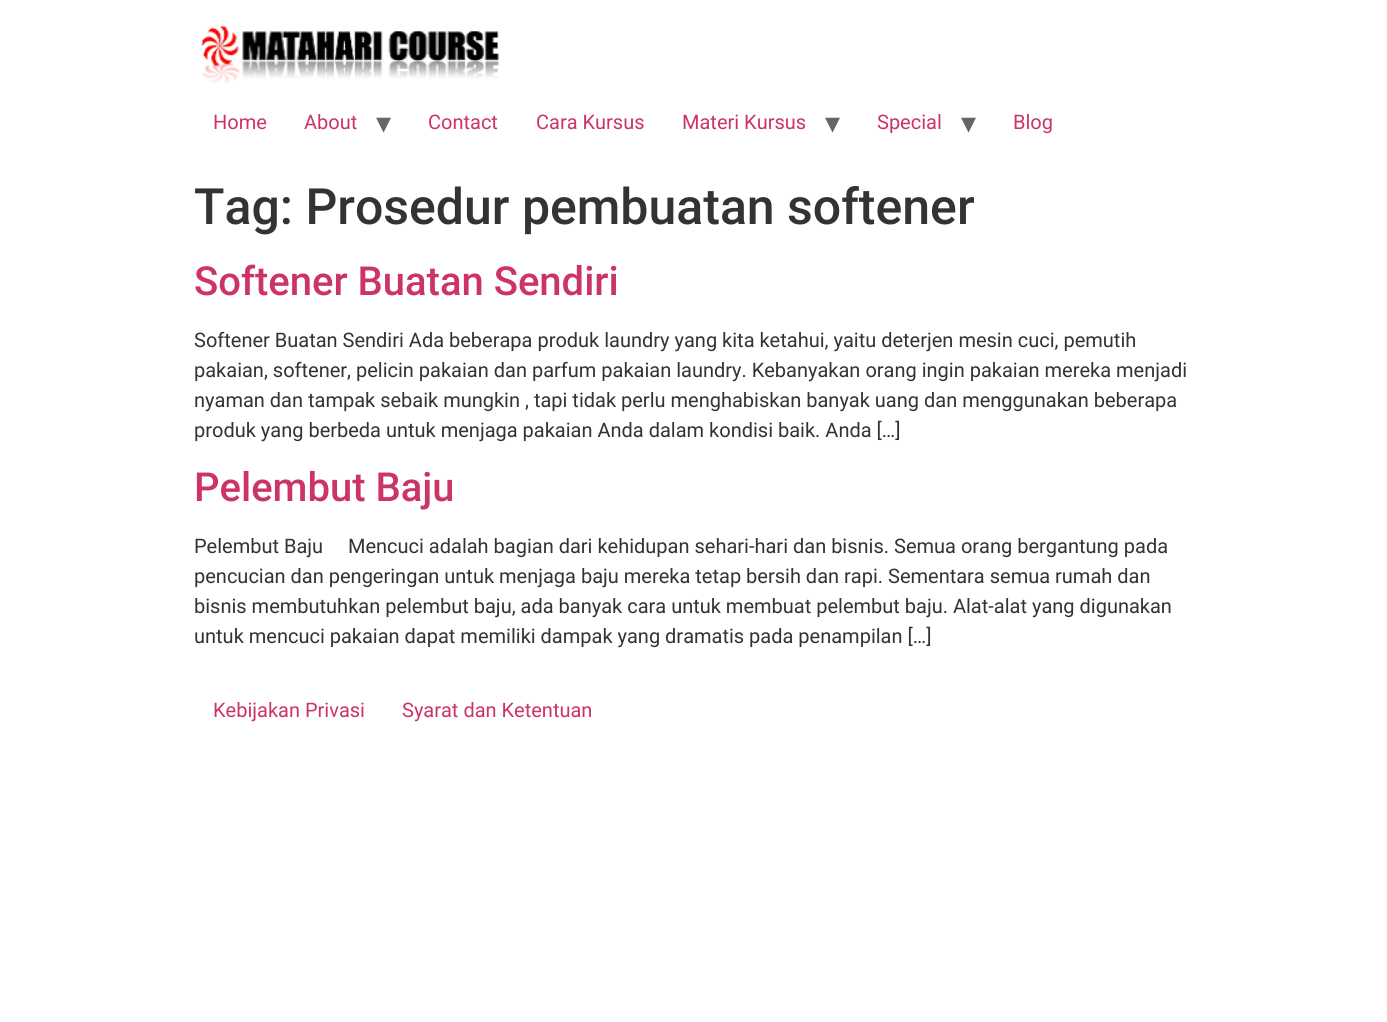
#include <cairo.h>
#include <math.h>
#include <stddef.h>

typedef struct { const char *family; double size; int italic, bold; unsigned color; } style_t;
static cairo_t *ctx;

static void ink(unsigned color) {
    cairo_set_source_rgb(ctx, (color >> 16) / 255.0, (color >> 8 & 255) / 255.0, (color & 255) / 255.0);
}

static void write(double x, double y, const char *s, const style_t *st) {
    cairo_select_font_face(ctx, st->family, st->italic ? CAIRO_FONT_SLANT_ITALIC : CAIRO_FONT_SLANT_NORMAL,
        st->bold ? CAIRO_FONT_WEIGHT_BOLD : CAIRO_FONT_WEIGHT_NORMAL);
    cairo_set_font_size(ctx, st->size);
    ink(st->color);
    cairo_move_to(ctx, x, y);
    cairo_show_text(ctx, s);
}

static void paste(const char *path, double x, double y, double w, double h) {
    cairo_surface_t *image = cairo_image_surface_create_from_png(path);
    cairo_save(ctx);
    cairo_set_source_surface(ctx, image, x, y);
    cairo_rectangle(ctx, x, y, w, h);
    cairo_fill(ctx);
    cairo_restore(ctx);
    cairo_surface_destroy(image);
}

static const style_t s1 = {"Roboto", 20, 0, 0, 0xcc3366};
static const style_t s2 = {"DejaVu Sans", 30, 0, 0, 0x666666};
static const style_t s3 = {"Roboto Medium", 50, 0, 0, 0x333333};
static const style_t s4 = {"Roboto Medium", 40, 0, 0, 0xcc3366};
static const style_t s5 = {"Roboto", 20, 0, 0, 0x333333};

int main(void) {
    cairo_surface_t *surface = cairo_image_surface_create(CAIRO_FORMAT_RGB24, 1387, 1022);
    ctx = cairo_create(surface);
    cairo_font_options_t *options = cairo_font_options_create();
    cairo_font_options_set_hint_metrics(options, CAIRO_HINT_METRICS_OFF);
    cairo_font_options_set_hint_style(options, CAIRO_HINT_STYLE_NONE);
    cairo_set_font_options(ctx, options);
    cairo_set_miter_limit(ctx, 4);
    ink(0xffffff);
    cairo_paint(ctx);
    paste("pic1.png", 201, 26, 298, 58);
    write(213, 129, "Home", &s1);
    write(304, 129, "About", &s1);
    write(376, 133, "▾", &s2);
    write(428, 129, "Contact", &s1);
    write(536, 129, "Cara Kursus", &s1);
    write(682, 129, "Materi Kursus", &s1);
    write(825, 133, "▾", &s2);
    write(877, 129, "Special", &s1);
    write(961, 133, "▾", &s2);
    write(1013, 129, "Blog", &s1);
    write(194, 224, "Tag: Prosedur pembuatan softener", &s3);
    write(194, 295, "Softener Buatan Sendiri", &s4);
    write(194, 347, "Softener Buatan Sendiri Ada beberapa produk laundry yang kita ketahui, yaitu deterjen mesin cuci, pemutih", &s5);
    write(194, 377, "pakaian, softener, pelicin pakaian dan parfum pakaian laundry. Kebanyakan orang ingin pakaian mereka menjadi", &s5);
    write(194, 407, "nyaman dan tampak sebaik mungkin , tapi tidak perlu menghabiskan banyak uang dan menggunakan beberapa", &s5);
    write(194, 437, "produk yang berbeda untuk menjaga pakaian Anda dalam kondisi baik. Anda […]", &s5);
    write(194, 501, "Pelembut Baju", &s4);
    write(194, 553, "Pelembut Baju     Mencuci adalah bagian dari kehidupan sehari-hari dan bisnis. Semua orang bergantung pada", &s5);
    write(194, 583, "pencucian dan pengeringan untuk menjaga baju mereka tetap bersih dan rapi. Sementara semua rumah dan", &s5);
    write(194, 613, "bisnis membutuhkan pelembut baju, ada banyak cara untuk membuat pelembut baju. Alat-alat yang digunakan", &s5);
    write(194, 643, "untuk mencuci pakaian dapat memiliki dampak yang dramatis pada penampilan […]", &s5);
    write(213, 717, "Kebijakan Privasi", &s1);
    write(402, 717, "Syarat dan Ketentuan", &s1);
    cairo_surface_write_to_png(surface, "screenshot.png");
    cairo_font_options_destroy(options);
    cairo_destroy(ctx);
    cairo_surface_destroy(surface);
    return 0;
}
